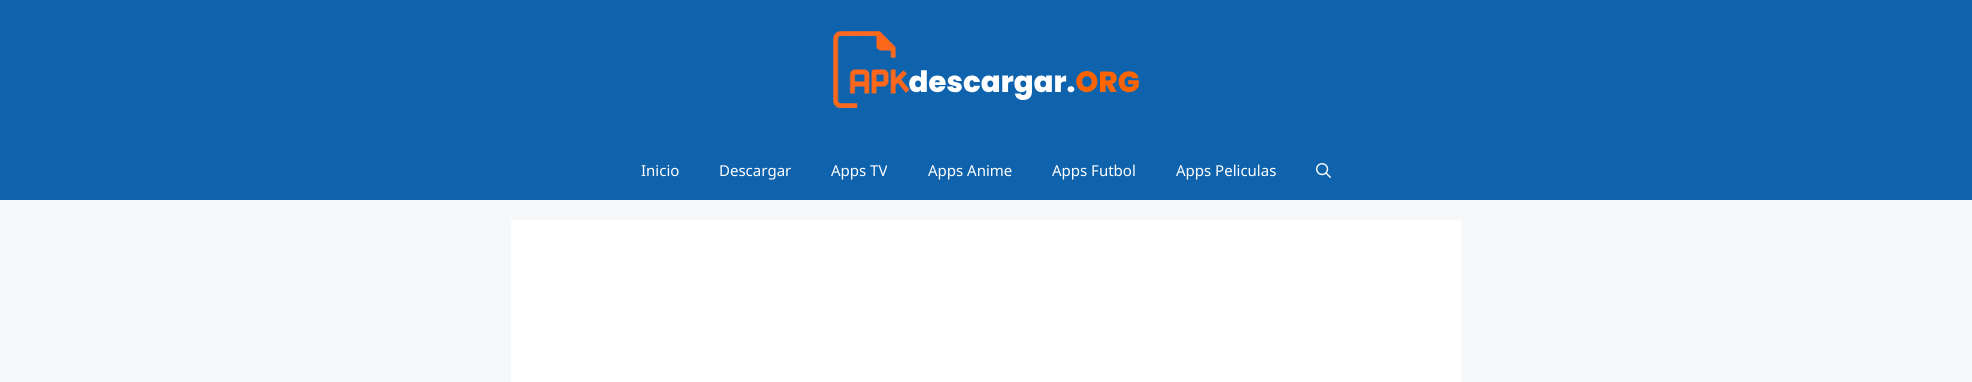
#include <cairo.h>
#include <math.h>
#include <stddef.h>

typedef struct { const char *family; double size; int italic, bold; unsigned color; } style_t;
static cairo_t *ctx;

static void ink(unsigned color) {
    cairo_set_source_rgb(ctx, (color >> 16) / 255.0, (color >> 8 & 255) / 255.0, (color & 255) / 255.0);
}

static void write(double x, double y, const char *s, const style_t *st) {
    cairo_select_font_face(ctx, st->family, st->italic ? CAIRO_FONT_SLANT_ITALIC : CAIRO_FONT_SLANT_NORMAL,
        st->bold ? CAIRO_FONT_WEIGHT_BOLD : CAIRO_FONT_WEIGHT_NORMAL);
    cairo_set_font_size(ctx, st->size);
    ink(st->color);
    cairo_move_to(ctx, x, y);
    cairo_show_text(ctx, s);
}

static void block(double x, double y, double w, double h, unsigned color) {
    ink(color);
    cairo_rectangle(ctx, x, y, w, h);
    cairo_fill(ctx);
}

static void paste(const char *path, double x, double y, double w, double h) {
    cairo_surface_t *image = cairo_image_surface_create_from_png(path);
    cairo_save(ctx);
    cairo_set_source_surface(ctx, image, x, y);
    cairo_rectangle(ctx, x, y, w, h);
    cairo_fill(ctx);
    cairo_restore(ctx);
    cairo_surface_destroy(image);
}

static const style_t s1 = {"Noto Sans", 15, 0, 0, 0xffffff};

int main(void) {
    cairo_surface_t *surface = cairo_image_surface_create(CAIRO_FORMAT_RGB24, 1972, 382);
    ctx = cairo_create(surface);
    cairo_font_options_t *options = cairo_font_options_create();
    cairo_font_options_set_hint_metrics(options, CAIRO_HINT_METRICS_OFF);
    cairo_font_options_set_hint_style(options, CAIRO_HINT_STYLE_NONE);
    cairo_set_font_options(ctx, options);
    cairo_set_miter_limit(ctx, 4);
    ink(0xf7f8f9);
    cairo_paint(ctx);
    block(0, 0, 1972, 200, 0x0f63ac);
    paste("pic1.png", 833, 31, 306, 77);
    write(641, 176, "Inicio", &s1);
    write(719, 176, "Descargar", &s1);
    write(831, 176, "Apps TV", &s1);
    write(928, 176, "Apps Anime", &s1);
    write(1052, 176, "Apps Futbol", &s1);
    write(1176, 176, "Apps Peliculas", &s1);
    paste("pic2.png", 1316, 163, 15, 15);
    block(511, 220, 950, 162, 0xffffff);
    cairo_surface_write_to_png(surface, "screenshot.png");
    cairo_font_options_destroy(options);
    cairo_destroy(ctx);
    cairo_surface_destroy(surface);
    return 0;
}
